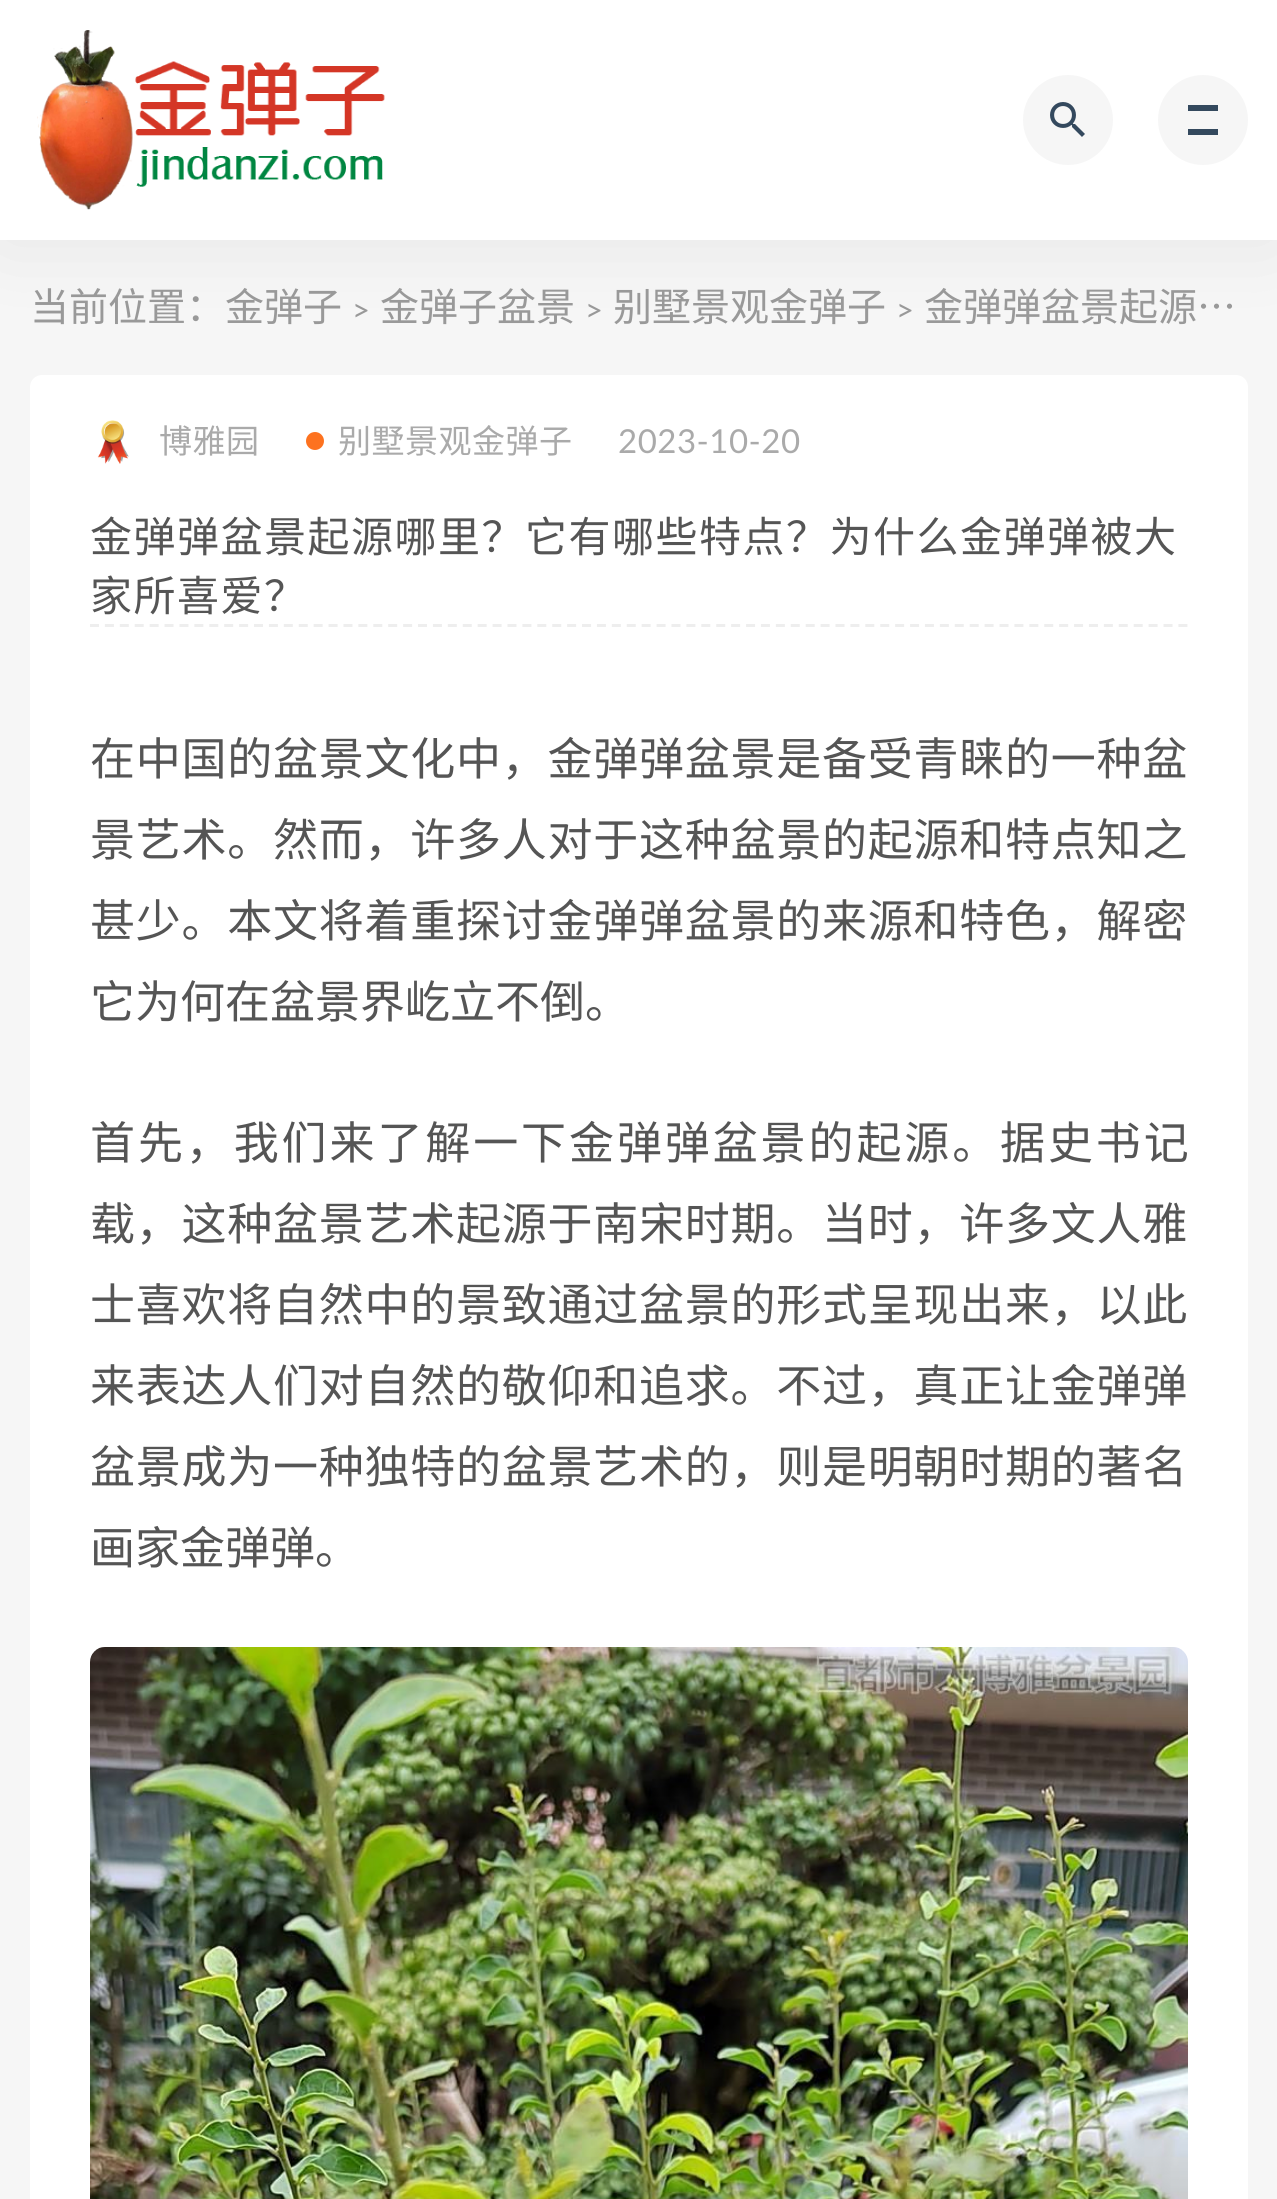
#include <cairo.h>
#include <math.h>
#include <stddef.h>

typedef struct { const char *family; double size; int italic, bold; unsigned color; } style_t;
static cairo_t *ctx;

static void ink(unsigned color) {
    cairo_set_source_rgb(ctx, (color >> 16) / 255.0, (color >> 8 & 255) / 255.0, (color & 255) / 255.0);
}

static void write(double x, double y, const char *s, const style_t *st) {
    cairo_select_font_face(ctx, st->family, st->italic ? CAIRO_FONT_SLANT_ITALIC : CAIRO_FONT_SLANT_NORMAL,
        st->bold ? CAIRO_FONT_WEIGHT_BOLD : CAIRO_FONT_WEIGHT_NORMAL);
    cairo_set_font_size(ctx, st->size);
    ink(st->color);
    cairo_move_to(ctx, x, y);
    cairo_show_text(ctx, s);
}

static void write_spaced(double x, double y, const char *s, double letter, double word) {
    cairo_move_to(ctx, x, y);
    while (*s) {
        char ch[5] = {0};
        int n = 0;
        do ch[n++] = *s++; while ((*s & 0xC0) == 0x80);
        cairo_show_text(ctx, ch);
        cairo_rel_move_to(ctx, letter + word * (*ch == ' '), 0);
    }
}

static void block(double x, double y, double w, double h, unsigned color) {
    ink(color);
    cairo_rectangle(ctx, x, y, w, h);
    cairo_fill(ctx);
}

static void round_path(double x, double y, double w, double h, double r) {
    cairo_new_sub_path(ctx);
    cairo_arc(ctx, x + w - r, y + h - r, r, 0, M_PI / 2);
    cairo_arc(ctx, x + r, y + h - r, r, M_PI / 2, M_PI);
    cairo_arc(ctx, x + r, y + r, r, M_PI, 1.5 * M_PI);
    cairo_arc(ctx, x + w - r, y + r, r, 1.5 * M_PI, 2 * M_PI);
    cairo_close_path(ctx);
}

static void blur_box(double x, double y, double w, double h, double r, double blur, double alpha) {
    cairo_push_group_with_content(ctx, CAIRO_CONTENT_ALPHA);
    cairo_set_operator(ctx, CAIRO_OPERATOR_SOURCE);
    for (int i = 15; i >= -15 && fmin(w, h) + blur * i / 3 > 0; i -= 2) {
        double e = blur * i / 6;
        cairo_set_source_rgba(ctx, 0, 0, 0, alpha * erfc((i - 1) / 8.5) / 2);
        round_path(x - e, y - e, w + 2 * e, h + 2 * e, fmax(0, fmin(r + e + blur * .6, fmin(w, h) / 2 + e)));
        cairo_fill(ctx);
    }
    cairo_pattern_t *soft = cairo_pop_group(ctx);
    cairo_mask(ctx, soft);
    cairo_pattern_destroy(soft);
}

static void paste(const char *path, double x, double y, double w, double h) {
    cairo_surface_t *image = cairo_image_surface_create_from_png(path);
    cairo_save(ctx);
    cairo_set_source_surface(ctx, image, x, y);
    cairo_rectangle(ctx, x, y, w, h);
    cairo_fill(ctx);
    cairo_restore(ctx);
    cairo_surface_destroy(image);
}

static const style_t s1 = {"Noto Sans CJK SC", 39, 0, 0, 0x999999};
static const style_t s2 = {"Lato", 31, 0, 0, 0x999999};
static const style_t s3 = {"Noto Sans CJK SC", 45, 0, 0, 0x555555};

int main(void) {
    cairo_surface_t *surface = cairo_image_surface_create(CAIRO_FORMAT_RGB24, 1277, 2199);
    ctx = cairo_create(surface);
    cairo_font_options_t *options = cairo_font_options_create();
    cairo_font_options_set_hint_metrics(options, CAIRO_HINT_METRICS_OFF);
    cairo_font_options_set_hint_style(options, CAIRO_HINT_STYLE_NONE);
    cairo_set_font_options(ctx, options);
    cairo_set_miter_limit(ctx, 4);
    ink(0xf6f6f6);
    cairo_paint(ctx);
    ink(0xffffff);
    round_path(30, 375, 1218, 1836, 12);
    cairo_fill(ctx);
    ink(0x000000);
    blur_box(0, 0, 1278, 240, 0, 45, 0.07);
    block(0, 0, 1277, 240, 0xffffff);
    paste("pic1.png", 37, 30, 348, 180);
    ink(0xf6f6f6);
    cairo_arc(ctx, 1068, 120, 45, 0, 2 * M_PI);
    cairo_fill(ctx);
    paste("pic2.png", 1050, 102, 35, 35);
    cairo_arc(ctx, 1203, 120, 45, 0, 2 * M_PI);
    cairo_fill(ctx);
    block(1188, 105, 30, 6, 0x34495e);
    block(1188, 129, 30, 6, 0x34495e);
    write(30, 321, "当前位置：金弹子", &s1);
    write(352, 321, ">", &s2);
    write(380, 321, "金弹子盆景", &s1);
    write(585, 321, ">", &s2);
    write(613, 321, "别墅景观金弹子", &s1);
    write(896, 321, ">", &s2);
    write(924, 321, "金弹弹盆景起源…", &s1);
    paste("pic3.png", 97, 420, 32, 44);
    cairo_set_font_size(ctx, 33);
    ink(0xaaaaaa);
    write_spaced(159, 453, "博雅园", 0.5, 0);
    ink(0xfd721f);
    cairo_new_path(ctx);
    cairo_arc(ctx, 315, 441, 9, 0, 2 * M_PI);
    cairo_fill(ctx);
    ink(0xaaaaaa);
    write_spaced(338, 453, "别墅景观金弹子", 0.5, 0);
    cairo_select_font_face(ctx, "Lato", CAIRO_FONT_SLANT_NORMAL, CAIRO_FONT_WEIGHT_NORMAL);
    write_spaced(618, 453, "2023-10-20", 0.5, 0);
    cairo_new_path(ctx);
    cairo_move_to(ctx, 90, 625.5);
    cairo_line_to(ctx, 1188, 625.5);
    ink(0xeeeeee);
    cairo_set_line_width(ctx, 3);
    cairo_set_dash(ctx, (double[]){9, 5.91}, 2, 0);
    cairo_stroke(ctx);
    cairo_select_font_face(ctx, "Noto Sans CJK SC", CAIRO_FONT_SLANT_NORMAL, CAIRO_FONT_WEIGHT_NORMAL);
    cairo_set_font_size(ctx, 42);
    ink(0x555555);
    write_spaced(90, 552, "金弹弹盆景起源哪里？它有哪些特点？为什么金弹弹被大", 1.5, 0);
    write_spaced(90, 611, "家所喜爱？", 1.5, 0);
    cairo_set_font_size(ctx, 45);
    write_spaced(90, 775, "在中国的盆景文化中，金弹弹盆景是备受青睐的一种盆", 0.75, 0);
    write_spaced(90, 856, "景艺术。然而，许多人对于这种盆景的起源和特点知之", 0.75, 0);
    write_spaced(90, 937, "甚少。本文将着重探讨金弹弹盆景的来源和特色，解密", 0.75, 0);
    write(90, 1018, "它为何在盆景界屹立不倒。", &s3);
    write_spaced(90, 1159, "首先，我们来了解一下金弹弹盆景的起源。据史书记", 2.9, 0);
    write_spaced(90, 1240, "载，这种盆景艺术起源于南宋时期。当时，许多文人雅", 0.75, 0);
    write_spaced(90, 1321, "士喜欢将自然中的景致通过盆景的形式呈现出来，以此", 0.75, 0);
    write_spaced(90, 1402, "来表达人们对自然的敬仰和追求。不过，真正让金弹弹", 0.75, 0);
    write_spaced(90, 1483, "盆景成为一种独特的盆景艺术的，则是明朝时期的著名", 0.75, 0);
    write(90, 1564, "画家金弹弹。", &s3);
    paste("pic4.png", 90, 1647, 1098, 552);
    cairo_surface_write_to_png(surface, "screenshot.png");
    cairo_font_options_destroy(options);
    cairo_destroy(ctx);
    cairo_surface_destroy(surface);
    return 0;
}
